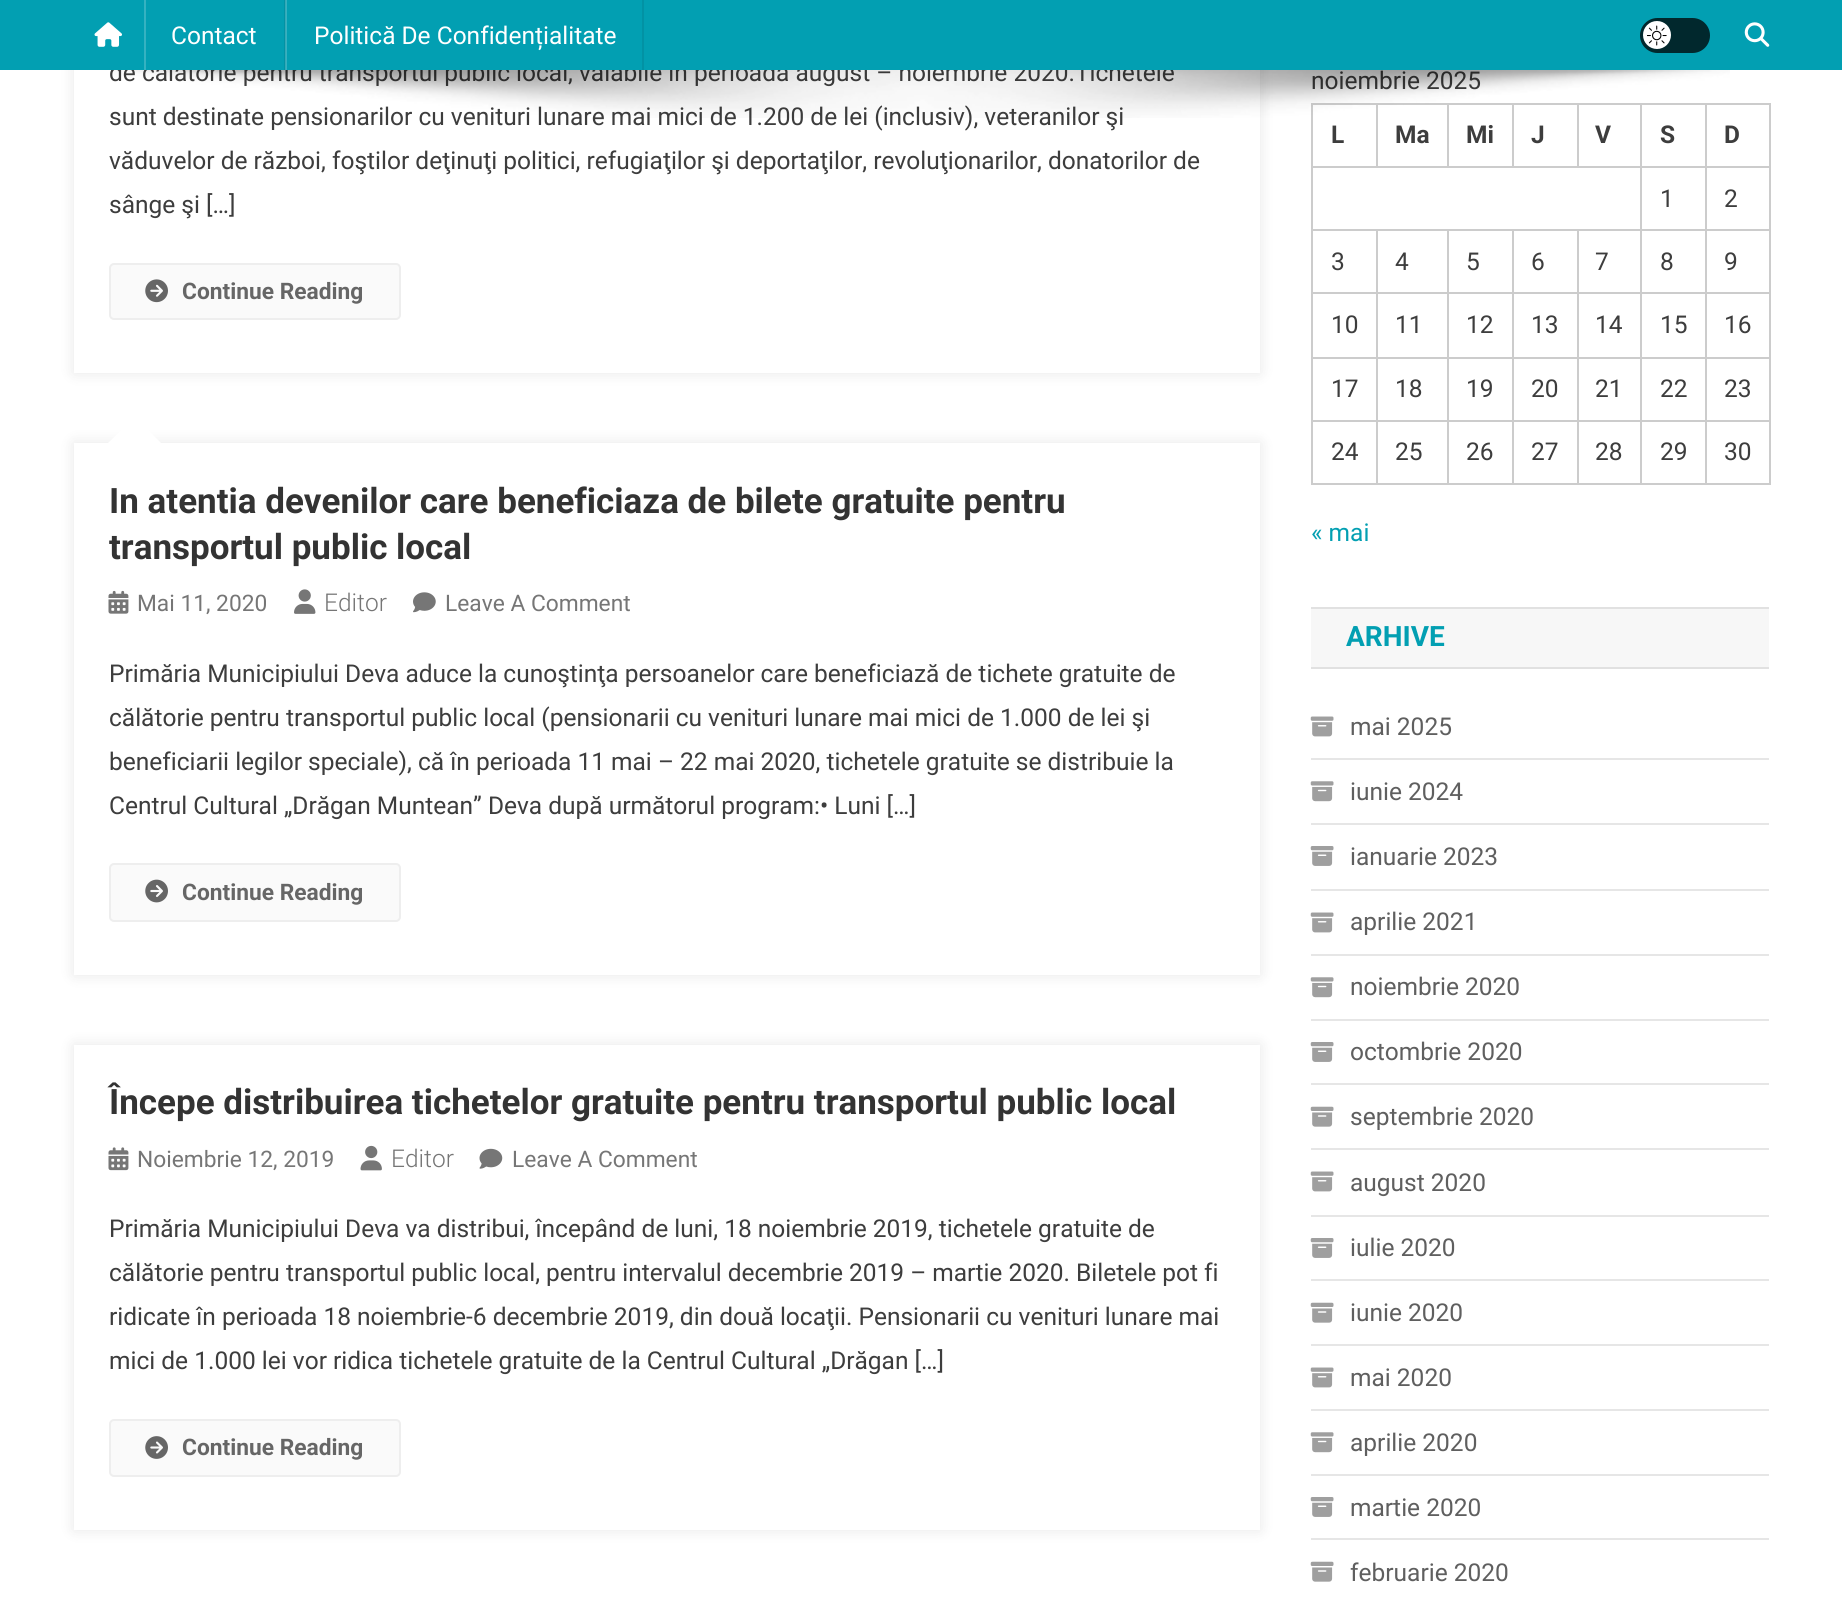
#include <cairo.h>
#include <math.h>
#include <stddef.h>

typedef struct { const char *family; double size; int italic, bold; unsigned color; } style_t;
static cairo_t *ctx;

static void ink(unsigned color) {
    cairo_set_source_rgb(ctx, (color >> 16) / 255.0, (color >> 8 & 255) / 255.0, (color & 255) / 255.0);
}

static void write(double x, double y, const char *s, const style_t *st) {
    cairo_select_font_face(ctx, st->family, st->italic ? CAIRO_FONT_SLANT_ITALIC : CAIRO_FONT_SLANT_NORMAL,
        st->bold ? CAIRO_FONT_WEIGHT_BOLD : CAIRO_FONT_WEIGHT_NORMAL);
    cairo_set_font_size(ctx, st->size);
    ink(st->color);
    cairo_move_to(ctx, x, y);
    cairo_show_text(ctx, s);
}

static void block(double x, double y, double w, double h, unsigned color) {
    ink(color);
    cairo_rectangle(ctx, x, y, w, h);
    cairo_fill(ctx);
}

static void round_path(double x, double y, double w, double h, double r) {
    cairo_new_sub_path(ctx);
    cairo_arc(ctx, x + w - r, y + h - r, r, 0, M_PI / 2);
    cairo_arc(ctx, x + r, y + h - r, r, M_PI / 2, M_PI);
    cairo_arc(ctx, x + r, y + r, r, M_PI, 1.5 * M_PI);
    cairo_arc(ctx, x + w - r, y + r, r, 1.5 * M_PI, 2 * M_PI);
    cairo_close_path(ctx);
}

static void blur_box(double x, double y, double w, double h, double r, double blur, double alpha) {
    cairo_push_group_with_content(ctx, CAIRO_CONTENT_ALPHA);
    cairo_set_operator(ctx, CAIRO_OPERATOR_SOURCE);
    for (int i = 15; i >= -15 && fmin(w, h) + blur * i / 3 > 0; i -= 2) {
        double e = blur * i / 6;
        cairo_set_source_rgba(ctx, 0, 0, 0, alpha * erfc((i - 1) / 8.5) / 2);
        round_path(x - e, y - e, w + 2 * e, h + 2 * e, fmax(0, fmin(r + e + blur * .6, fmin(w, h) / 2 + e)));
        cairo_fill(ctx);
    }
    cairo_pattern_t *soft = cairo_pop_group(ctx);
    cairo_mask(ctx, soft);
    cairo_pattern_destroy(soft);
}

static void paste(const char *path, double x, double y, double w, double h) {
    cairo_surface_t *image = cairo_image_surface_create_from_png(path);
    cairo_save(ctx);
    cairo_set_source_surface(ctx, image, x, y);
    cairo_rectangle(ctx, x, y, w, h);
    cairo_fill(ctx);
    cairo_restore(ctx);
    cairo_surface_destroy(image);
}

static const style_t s1 = {"Roboto", 24.5, 0, 0, 0x3d3d3d};
static const style_t s2 = {"Roboto", 24.5, 0, 0, 0xffffff};
static const style_t s3 = {"Roboto", 22.75, 0, 1, 0x666666};
static const style_t s4 = {"Roboto", 35, 0, 1, 0x333333};
static const style_t s5 = {"Roboto", 22.75, 0, 0, 0x767676};
static const style_t s6 = {"Roboto Light", 24.5, 0, 0, 0x767676};
static const style_t s7 = {"Roboto", 24.5, 0, 1, 0x3d3d3d};
static const style_t s8 = {"Roboto", 24.5, 0, 0, 0x029fb2};
static const style_t s9 = {"Roboto", 28, 0, 1, 0x029fb2};
static const style_t s10 = {"Roboto", 24.5, 0, 0, 0x5f5f5f};

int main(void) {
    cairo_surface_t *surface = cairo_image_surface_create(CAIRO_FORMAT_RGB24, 1842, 1600);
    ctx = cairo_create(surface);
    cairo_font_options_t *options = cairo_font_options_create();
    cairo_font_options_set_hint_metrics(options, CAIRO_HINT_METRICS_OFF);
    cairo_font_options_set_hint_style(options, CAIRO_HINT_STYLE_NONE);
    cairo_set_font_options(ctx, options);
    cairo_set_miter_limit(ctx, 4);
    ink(0xffffff);
    cairo_paint(ctx);
    cairo_save(ctx);
    cairo_set_fill_rule(ctx, CAIRO_FILL_RULE_EVEN_ODD);
    cairo_new_path(ctx);
    cairo_move_to(ctx, 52, 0);
    cairo_line_to(ctx, 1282, 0);
    cairo_line_to(ctx, 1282, 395);
    cairo_line_to(ctx, 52, 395);
    cairo_close_path(ctx);
    cairo_move_to(ctx, 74, -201);
    cairo_line_to(ctx, 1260, -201);
    cairo_line_to(ctx, 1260, 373);
    cairo_line_to(ctx, 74, 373);
    cairo_close_path(ctx);
    cairo_clip(ctx);
    ink(0x000000);
    blur_box(74, -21, 1186, 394, 0, 7, 0.1);
    cairo_restore(ctx);
    write(109, 81, "de călătorie pentru transportul public local, valabile în perioada august – noiembrie 2020.Tichetele", &s1);
    block(0, 0, 1842, 70, 0x029fb2);
    paste("pic1.png", 94, 22, 28, 25);
    block(284, 0, 2, 70, 0x0292a4);
    block(144, 0, 2, 70, 0x35b2c1);
    write(171, 44, "Contact", &s2);
    block(642, 0, 2, 70, 0x0292a4);
    cairo_set_source_rgba(ctx, 1, 1, 1, 0.2);
    cairo_rectangle(ctx, 285, 0, 2, 70);
    cairo_fill(ctx);
    write(314, 44, "Politică De Confidențialitate", &s2);
    ink(0x01282d);
    round_path(1640, 18, 70, 35, 17.5);
    cairo_fill(ctx);
    ink(0xffffff);
    cairo_arc(ctx, 1657, 35, 14, 0, 2 * M_PI);
    cairo_fill(ctx);
    paste("pic2.png", 1647, 25, 20, 21);
    paste("pic3.png", 1744, 22, 26, 25);
    write(109, 125, "sunt destinate pensionarilor cu venituri lunare mai mici de 1.200 de lei (inclusiv), veteranilor şi", &s1);
    write(1311, 89, "noiembrie 2025", &s1);
    block(1705, 103, 66, 2, 0xcccccc);
    block(1705, 166, 66, 2, 0xcccccc);
    block(1705, 229, 66, 2, 0xcccccc);
    block(1705, 292, 66, 2, 0xcccccc);
    block(1705, 357, 66, 2, 0xcccccc);
    block(1705, 420, 66, 2, 0xcccccc);
    block(1769, 420, 2, 65, 0xcccccc);
    block(1705, 483, 66, 2, 0xcccccc);
    block(1705, 420, 2, 65, 0xcccccc);
    block(1640, 420, 66, 2, 0xcccccc);
    block(1705, 357, 2, 65, 0xcccccc);
    block(1640, 357, 66, 2, 0xcccccc);
    block(1705, 292, 2, 67, 0xcccccc);
    block(1640, 292, 66, 2, 0xcccccc);
    block(1705, 229, 2, 65, 0xcccccc);
    block(1640, 229, 66, 2, 0xcccccc);
    block(1705, 166, 2, 65, 0xcccccc);
    block(1640, 166, 66, 2, 0xcccccc);
    block(1705, 103, 2, 65, 0xcccccc);
    block(1640, 103, 66, 2, 0xcccccc);
    block(1640, 483, 66, 2, 0xcccccc);
    block(1640, 420, 2, 65, 0xcccccc);
    block(1577, 420, 65, 2, 0xcccccc);
    block(1640, 357, 2, 65, 0xcccccc);
    block(1577, 357, 65, 2, 0xcccccc);
    block(1640, 292, 2, 67, 0xcccccc);
    block(1577, 292, 65, 2, 0xcccccc);
    block(1640, 229, 2, 65, 0xcccccc);
    block(1577, 229, 65, 2, 0xcccccc);
    block(1640, 166, 2, 65, 0xcccccc);
    block(1311, 166, 331, 2, 0xcccccc);
    block(1640, 103, 2, 65, 0xcccccc);
    block(1577, 103, 65, 2, 0xcccccc);
    block(1577, 103, 2, 65, 0xcccccc);
    block(1512, 103, 67, 2, 0xcccccc);
    block(1512, 103, 2, 65, 0xcccccc);
    block(1447, 103, 67, 2, 0xcccccc);
    block(1447, 103, 2, 65, 0xcccccc);
    block(1376, 103, 73, 2, 0xcccccc);
    block(1376, 103, 2, 65, 0xcccccc);
    block(1311, 103, 66, 2, 0xcccccc);
    block(1577, 483, 65, 2, 0xcccccc);
    block(1577, 420, 2, 65, 0xcccccc);
    block(1512, 420, 67, 2, 0xcccccc);
    block(1577, 357, 2, 65, 0xcccccc);
    block(1512, 357, 67, 2, 0xcccccc);
    block(1577, 292, 2, 67, 0xcccccc);
    block(1512, 292, 67, 2, 0xcccccc);
    block(1577, 229, 2, 65, 0xcccccc);
    block(1512, 229, 67, 2, 0xcccccc);
    block(1512, 483, 67, 2, 0xcccccc);
    block(1512, 420, 2, 65, 0xcccccc);
    block(1447, 420, 67, 2, 0xcccccc);
    block(1512, 357, 2, 65, 0xcccccc);
    block(1447, 357, 67, 2, 0xcccccc);
    block(1512, 292, 2, 67, 0xcccccc);
    block(1447, 292, 67, 2, 0xcccccc);
    block(1512, 229, 2, 65, 0xcccccc);
    block(1447, 229, 67, 2, 0xcccccc);
    block(1447, 483, 67, 2, 0xcccccc);
    block(1447, 420, 2, 65, 0xcccccc);
    block(1376, 420, 73, 2, 0xcccccc);
    block(1447, 357, 2, 65, 0xcccccc);
    block(1376, 357, 73, 2, 0xcccccc);
    block(1447, 292, 2, 67, 0xcccccc);
    block(1376, 292, 73, 2, 0xcccccc);
    block(1447, 229, 2, 65, 0xcccccc);
    block(1376, 229, 73, 2, 0xcccccc);
    block(1376, 483, 73, 2, 0xcccccc);
    block(1376, 420, 2, 65, 0xcccccc);
    block(1311, 420, 66, 2, 0xcccccc);
    block(1376, 357, 2, 65, 0xcccccc);
    block(1311, 357, 66, 2, 0xcccccc);
    block(1376, 292, 2, 67, 0xcccccc);
    block(1311, 292, 66, 2, 0xcccccc);
    block(1376, 229, 2, 65, 0xcccccc);
    block(1311, 229, 66, 2, 0xcccccc);
    block(1311, 483, 66, 2, 0xcccccc);
    block(1311, 420, 2, 65, 0xcccccc);
    block(1311, 357, 2, 65, 0xcccccc);
    block(1311, 292, 2, 67, 0xcccccc);
    block(1311, 229, 2, 65, 0xcccccc);
    block(1311, 166, 2, 65, 0xcccccc);
    block(1311, 103, 2, 65, 0xcccccc);
    paste("pic4.png", 113, 70, 1617, 48);
    write(109, 169, "văduvelor de război, foştilor deţinuţi politici, refugiaţilor şi deportaţilor, revoluţionarilor, donatorilor de", &s1);
    write(109, 213, "sânge şi […]", &s1);
    ink(0xfafafa);
    round_path(110, 264, 290, 55, 4);
    cairo_fill_preserve(ctx);
    ink(0xeeeeee);
    cairo_stroke(ctx);
    paste("pic5.png", 145, 279, 23, 24);
    write(182, 299, "Continue Reading", &s3);
    cairo_save(ctx);
    cairo_set_fill_rule(ctx, CAIRO_FILL_RULE_EVEN_ODD);
    cairo_new_path(ctx);
    cairo_move_to(ctx, 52, 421);
    cairo_line_to(ctx, 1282, 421);
    cairo_line_to(ctx, 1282, 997);
    cairo_line_to(ctx, 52, 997);
    cairo_close_path(ctx);
    cairo_move_to(ctx, 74, 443);
    cairo_line_to(ctx, 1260, 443);
    cairo_line_to(ctx, 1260, 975);
    cairo_line_to(ctx, 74, 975);
    cairo_close_path(ctx);
    cairo_clip(ctx);
    ink(0x000000);
    blur_box(74, 443, 1186, 532, 0, 7, 0.1);
    cairo_restore(ctx);
    ink(0xffffff);
    cairo_new_path(ctx);
    cairo_move_to(ctx, 161, 443);
    cairo_line_to(ctx, 108, 443);
    cairo_line_to(ctx, 135, 417);
    cairo_close_path(ctx);
    cairo_fill(ctx);
    write(109, 513, "In atentia devenilor care beneficiaza de bilete gratuite pentru", &s4);
    write(109, 559, "transportul public local", &s4);
    paste("pic6.png", 108, 590, 21, 24);
    write(137, 611, "Mai 11, 2020", &s5);
    paste("pic7.png", 294, 589, 22, 25);
    write(324, 611, "Editor", &s6);
    paste("pic8.png", 413, 592, 23, 21);
    write(445, 611, "Leave A Comment", &s5);
    write(109, 682, "Primăria Municipiului Deva aduce la cunoştinţa persoanelor care beneficiază de tichete gratuite de", &s1);
    write(109, 726, "călătorie pentru transportul public local (pensionarii cu venituri lunare mai mici de 1.000 de lei şi", &s1);
    write(109, 770, "beneficiarii legilor speciale), că în perioada 11 mai – 22 mai 2020, tichetele gratuite se distribuie la", &s1);
    write(109, 814, "Centrul Cultural „Drăgan Muntean” Deva după următorul program:• Luni […]", &s1);
    ink(0xfafafa);
    round_path(110, 864, 290, 57, 4);
    cairo_fill_preserve(ctx);
    ink(0xeeeeee);
    cairo_stroke(ctx);
    paste("pic9.png", 145, 879, 23, 24);
    write(182, 900, "Continue Reading", &s3);
    cairo_save(ctx);
    cairo_set_fill_rule(ctx, CAIRO_FILL_RULE_EVEN_ODD);
    cairo_new_path(ctx);
    cairo_move_to(ctx, 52, 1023);
    cairo_line_to(ctx, 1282, 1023);
    cairo_line_to(ctx, 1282, 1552);
    cairo_line_to(ctx, 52, 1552);
    cairo_close_path(ctx);
    cairo_move_to(ctx, 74, 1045);
    cairo_line_to(ctx, 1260, 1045);
    cairo_line_to(ctx, 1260, 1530);
    cairo_line_to(ctx, 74, 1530);
    cairo_close_path(ctx);
    cairo_clip(ctx);
    ink(0x000000);
    blur_box(74, 1045, 1186, 485, 0, 7, 0.1);
    cairo_restore(ctx);
    write(109, 1114, "Începe distribuirea tichetelor gratuite pentru transportul public local", &s4);
    paste("pic10.png", 108, 1147, 21, 24);
    write(137, 1167, "Noiembrie 12, 2019", &s5);
    paste("pic11.png", 360, 1145, 22, 26);
    write(391, 1167, "Editor", &s6);
    paste("pic12.png", 479, 1148, 24, 21);
    write(512, 1167, "Leave A Comment", &s5);
    write(109, 1237, "Primăria Municipiului Deva va distribui, începând de luni, 18 noiembrie 2019, tichetele gratuite de", &s1);
    write(109, 1281, "călătorie pentru transportul public local, pentru intervalul decembrie 2019 – martie 2020. Biletele pot fi", &s1);
    write(109, 1325, "ridicate în perioada 18 noiembrie-6 decembrie 2019, din două locaţii. Pensionarii cu venituri lunare mai", &s1);
    write(109, 1369, "mici de 1.000 lei vor ridica tichetele gratuite de la Centrul Cultural „Drăgan […]", &s1);
    ink(0xfafafa);
    round_path(110, 1420, 290, 56, 4);
    cairo_fill_preserve(ctx);
    ink(0xeeeeee);
    cairo_stroke(ctx);
    paste("pic13.png", 145, 1436, 23, 23);
    write(182, 1455, "Continue Reading", &s3);
    write(1331, 143, "L", &s7);
    write(1395, 143, "Ma", &s7);
    write(1466, 143, "Mi", &s7);
    write(1531, 143, "J", &s7);
    write(1595, 143, "V", &s7);
    write(1660, 143, "S", &s7);
    block(1769, 357, 2, 65, 0xcccccc);
    block(1769, 292, 2, 67, 0xcccccc);
    block(1769, 229, 2, 65, 0xcccccc);
    block(1769, 166, 2, 65, 0xcccccc);
    block(1769, 103, 2, 65, 0xcccccc);
    write(1724, 143, "D", &s7);
    write(1660, 207, "1", &s1);
    write(1724, 207, "2", &s1);
    write(1331, 270, "3", &s1);
    write(1395, 270, "4", &s1);
    write(1466, 270, "5", &s1);
    write(1531, 270, "6", &s1);
    write(1595, 270, "7", &s1);
    write(1660, 270, "8", &s1);
    write(1724, 270, "9", &s1);
    write(1331, 333, "10", &s1);
    write(1395, 333, "11", &s1);
    write(1466, 333, "12", &s1);
    write(1531, 333, "13", &s1);
    write(1595, 333, "14", &s1);
    write(1660, 333, "15", &s1);
    write(1724, 333, "16", &s1);
    write(1331, 397, "17", &s1);
    write(1395, 397, "18", &s1);
    write(1466, 397, "19", &s1);
    write(1531, 397, "20", &s1);
    write(1595, 397, "21", &s1);
    write(1660, 397, "22", &s1);
    write(1724, 397, "23", &s1);
    write(1331, 460, "24", &s1);
    write(1395, 460, "25", &s1);
    write(1466, 460, "26", &s1);
    write(1531, 460, "27", &s1);
    write(1595, 460, "28", &s1);
    write(1660, 460, "29", &s1);
    write(1724, 460, "30", &s1);
    write(1311, 541, "« mai", &s8);
    block(1311, 609, 458, 58, 0xf7f7f7);
    block(1311, 607, 458, 2, 0xe1e1e1);
    block(1311, 667, 458, 2, 0xe1e1e1);
    write(1346, 646, "ARHIVE", &s9);
    block(1311, 758, 458, 2, 0xe6e6e6);
    paste("pic14.png", 1310, 716, 24, 21);
    write(1350, 735, "mai 2025", &s10);
    block(1311, 823, 458, 2, 0xe6e6e6);
    paste("pic15.png", 1310, 781, 24, 21);
    write(1350, 800, "iunie 2024", &s10);
    block(1311, 889, 458, 2, 0xe6e6e6);
    paste("pic16.png", 1310, 846, 24, 20);
    write(1350, 865, "ianuarie 2023", &s10);
    block(1311, 954, 458, 2, 0xe6e6e6);
    paste("pic14.png", 1310, 912, 24, 21);
    write(1350, 930, "aprilie 2021", &s10);
    block(1311, 1019, 458, 2, 0xe6e6e6);
    paste("pic15.png", 1310, 977, 24, 21);
    write(1350, 995, "noiembrie 2020", &s10);
    block(1311, 1083, 458, 2, 0xe6e6e6);
    paste("pic16.png", 1310, 1042, 24, 20);
    write(1350, 1060, "octombrie 2020", &s10);
    block(1311, 1148, 458, 2, 0xe6e6e6);
    paste("pic17.png", 1310, 1106, 24, 21);
    write(1350, 1125, "septembrie 2020", &s10);
    block(1311, 1215, 458, 2, 0xe6e6e6);
    paste("pic14.png", 1310, 1171, 24, 21);
    write(1350, 1191, "august 2020", &s10);
    block(1311, 1279, 458, 2, 0xe6e6e6);
    paste("pic16.png", 1310, 1238, 24, 20);
    write(1350, 1256, "iulie 2020", &s10);
    block(1311, 1344, 458, 2, 0xe6e6e6);
    paste("pic17.png", 1310, 1302, 24, 21);
    write(1350, 1321, "iunie 2020", &s10);
    block(1311, 1409, 458, 2, 0xe6e6e6);
    paste("pic14.png", 1310, 1367, 24, 21);
    write(1350, 1386, "mai 2020", &s10);
    block(1311, 1474, 458, 2, 0xe6e6e6);
    paste("pic15.png", 1310, 1432, 24, 21);
    write(1350, 1451, "aprilie 2020", &s10);
    block(1311, 1538, 458, 2, 0xe6e6e6);
    paste("pic16.png", 1310, 1497, 24, 20);
    write(1350, 1516, "martie 2020", &s10);
    paste("pic17.png", 1310, 1561, 24, 21);
    write(1350, 1581, "februarie 2020", &s10);
    cairo_surface_write_to_png(surface, "screenshot.png");
    cairo_font_options_destroy(options);
    cairo_destroy(ctx);
    cairo_surface_destroy(surface);
    return 0;
}
